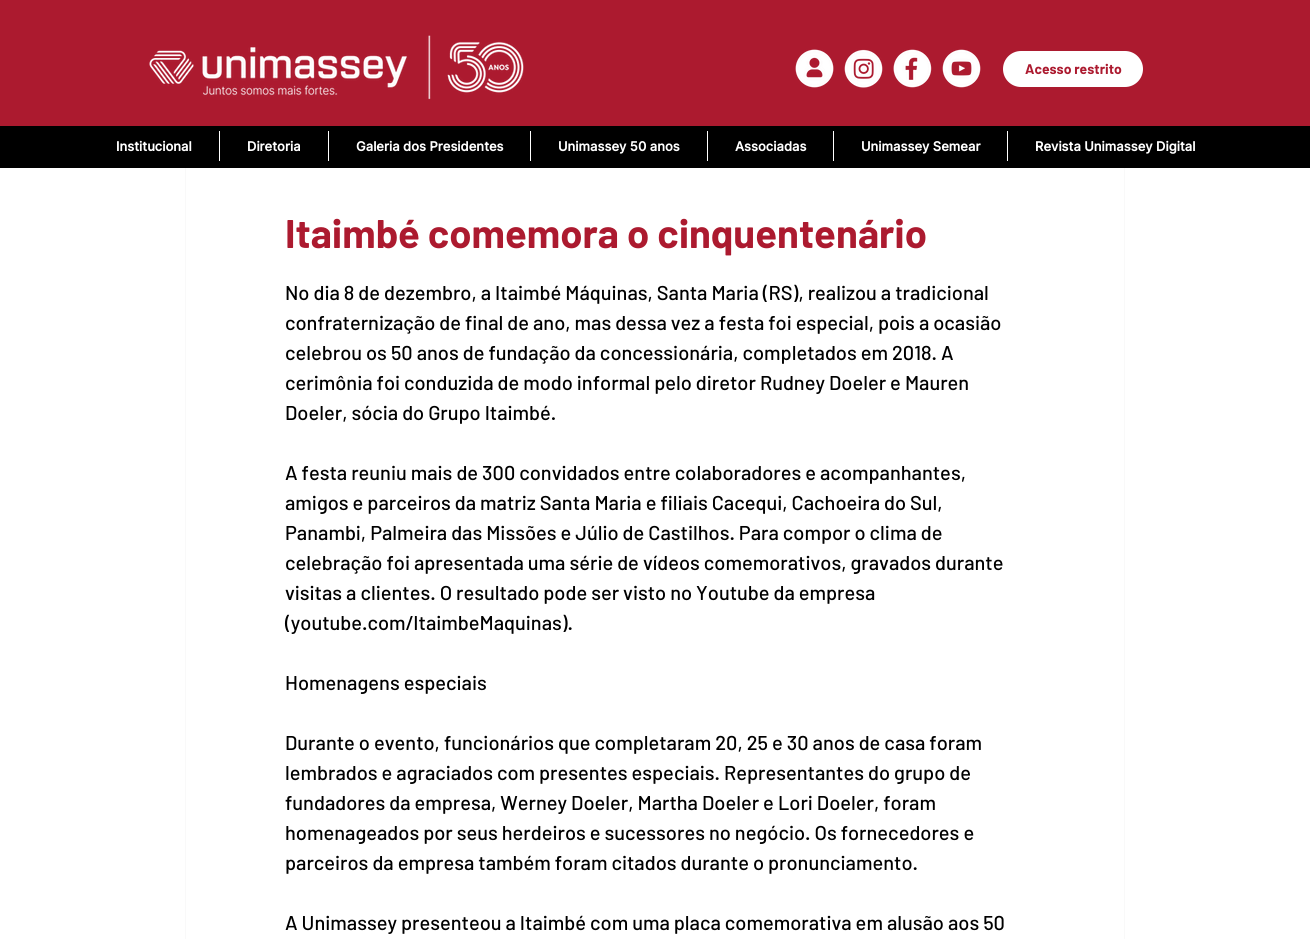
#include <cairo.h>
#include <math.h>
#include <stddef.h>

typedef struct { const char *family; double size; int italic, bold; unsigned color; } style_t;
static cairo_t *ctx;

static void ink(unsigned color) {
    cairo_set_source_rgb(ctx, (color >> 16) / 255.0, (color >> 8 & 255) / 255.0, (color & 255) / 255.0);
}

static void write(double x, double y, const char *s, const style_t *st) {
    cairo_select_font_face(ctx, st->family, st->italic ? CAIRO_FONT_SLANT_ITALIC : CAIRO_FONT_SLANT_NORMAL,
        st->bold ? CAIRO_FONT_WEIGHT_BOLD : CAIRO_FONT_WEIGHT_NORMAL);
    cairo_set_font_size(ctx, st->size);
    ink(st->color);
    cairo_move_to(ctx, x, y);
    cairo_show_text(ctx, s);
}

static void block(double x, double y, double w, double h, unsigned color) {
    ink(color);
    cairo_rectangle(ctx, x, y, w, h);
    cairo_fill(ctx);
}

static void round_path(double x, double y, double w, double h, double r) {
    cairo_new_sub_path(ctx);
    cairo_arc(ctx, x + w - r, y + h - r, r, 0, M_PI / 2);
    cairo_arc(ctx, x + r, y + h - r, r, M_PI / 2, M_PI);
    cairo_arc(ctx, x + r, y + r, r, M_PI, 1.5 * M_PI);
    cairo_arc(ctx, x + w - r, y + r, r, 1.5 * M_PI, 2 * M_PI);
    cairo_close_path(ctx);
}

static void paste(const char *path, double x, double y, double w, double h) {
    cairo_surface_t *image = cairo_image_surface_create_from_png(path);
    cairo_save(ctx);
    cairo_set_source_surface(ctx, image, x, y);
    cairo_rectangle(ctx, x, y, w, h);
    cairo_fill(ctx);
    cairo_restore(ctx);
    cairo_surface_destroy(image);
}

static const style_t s1 = {"Barlow", 14, 0, 1, 0xac1a2f};
static const style_t s2 = {"Inter", 13, 0, 1, 0xffffff};
static const style_t s3 = {"Barlow", 40, 0, 1, 0xac1a2f};
static const style_t s4 = {"Barlow Medium", 20, 0, 0, 0x000000};

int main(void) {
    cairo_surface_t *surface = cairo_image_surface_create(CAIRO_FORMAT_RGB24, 1310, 939);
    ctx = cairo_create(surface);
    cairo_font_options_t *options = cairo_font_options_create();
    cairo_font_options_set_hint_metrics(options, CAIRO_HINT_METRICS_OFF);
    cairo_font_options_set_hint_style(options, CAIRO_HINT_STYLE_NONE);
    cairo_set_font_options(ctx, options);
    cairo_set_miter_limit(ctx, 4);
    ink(0xffffff);
    cairo_paint(ctx);
    block(0, 0, 1310, 126, 0xac1a2f);
    paste("pic1.png", 149, 35, 375, 65);
    paste("pic2.png", 795, 49, 39, 39);
    paste("pic3.png", 844, 49, 39, 39);
    paste("pic4.png", 893, 49, 39, 39);
    paste("pic5.png", 942, 49, 39, 39);
    ink(0xffffff);
    round_path(1003, 51, 140, 36, 18);
    cairo_fill(ctx);
    write(1025, 74, "Acesso restrito", &s1);
    cairo_rectangle(ctx, 185.5, 146.5, 939, 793);
    ink(0xf9f9f9);
    cairo_set_line_width(ctx, 1);
    cairo_stroke(ctx);
    block(0, 126, 1310, 42, 0x000000);
    write(116, 151, "Institucional", &s2);
    block(219, 131, 1, 30, 0xffffff);
    write(247, 151, "Diretoria", &s2);
    block(328, 131, 1, 30, 0xffffff);
    write(356, 151, "Galeria dos Presidentes", &s2);
    block(530, 131, 1, 30, 0xffffff);
    write(558, 151, "Unimassey 50 anos", &s2);
    block(707, 131, 1, 30, 0xffffff);
    write(735, 151, "Associadas", &s2);
    block(833, 131, 1, 30, 0xffffff);
    write(861, 151, "Unimassey Semear", &s2);
    block(1007, 131, 1, 30, 0xffffff);
    write(1035, 151, "Revista Unimassey Digital", &s2);
    write(285, 248, "Itaimbé comemora o cinquentenário", &s3);
    write(285, 300, "No dia 8 de dezembro, a Itaimbé Máquinas, Santa Maria (RS), realizou a tradicional", &s4);
    write(285, 330, "confraternização de final de ano, mas dessa vez a festa foi especial, pois a ocasião", &s4);
    write(285, 360, "celebrou os 50 anos de fundação da concessionária, completados em 2018. A", &s4);
    write(285, 390, "cerimônia foi conduzida de modo informal pelo diretor Rudney Doeler e Mauren", &s4);
    write(285, 420, "Doeler, sócia do Grupo Itaimbé.", &s4);
    write(285, 480, "A festa reuniu mais de 300 convidados entre colaboradores e acompanhantes,", &s4);
    write(285, 510, "amigos e parceiros da matriz Santa Maria e filiais Cacequi, Cachoeira do Sul,", &s4);
    write(285, 540, "Panambi, Palmeira das Missões e Júlio de Castilhos. Para compor o clima de", &s4);
    write(285, 570, "celebração foi apresentada uma série de vídeos comemorativos, gravados durante", &s4);
    write(285, 600, "visitas a clientes. O resultado pode ser visto no Youtube da empresa", &s4);
    write(285, 630, "(youtube.com/ItaimbeMaquinas).", &s4);
    write(285, 690, "Homenagens especiais", &s4);
    write(285, 750, "Durante o evento, funcionários que completaram 20, 25 e 30 anos de casa foram", &s4);
    write(285, 780, "lembrados e agraciados com presentes especiais. Representantes do grupo de", &s4);
    write(285, 810, "fundadores da empresa, Werney Doeler, Martha Doeler e Lori Doeler, foram", &s4);
    write(285, 840, "homenageados por seus herdeiros e sucessores no negócio. Os fornecedores e", &s4);
    write(285, 870, "parceiros da empresa também foram citados durante o pronunciamento.", &s4);
    write(285, 930, "A Unimassey presenteou a Itaimbé com uma placa comemorativa em alusão aos 50", &s4);
    cairo_surface_write_to_png(surface, "screenshot.png");
    cairo_font_options_destroy(options);
    cairo_destroy(ctx);
    cairo_surface_destroy(surface);
    return 0;
}
